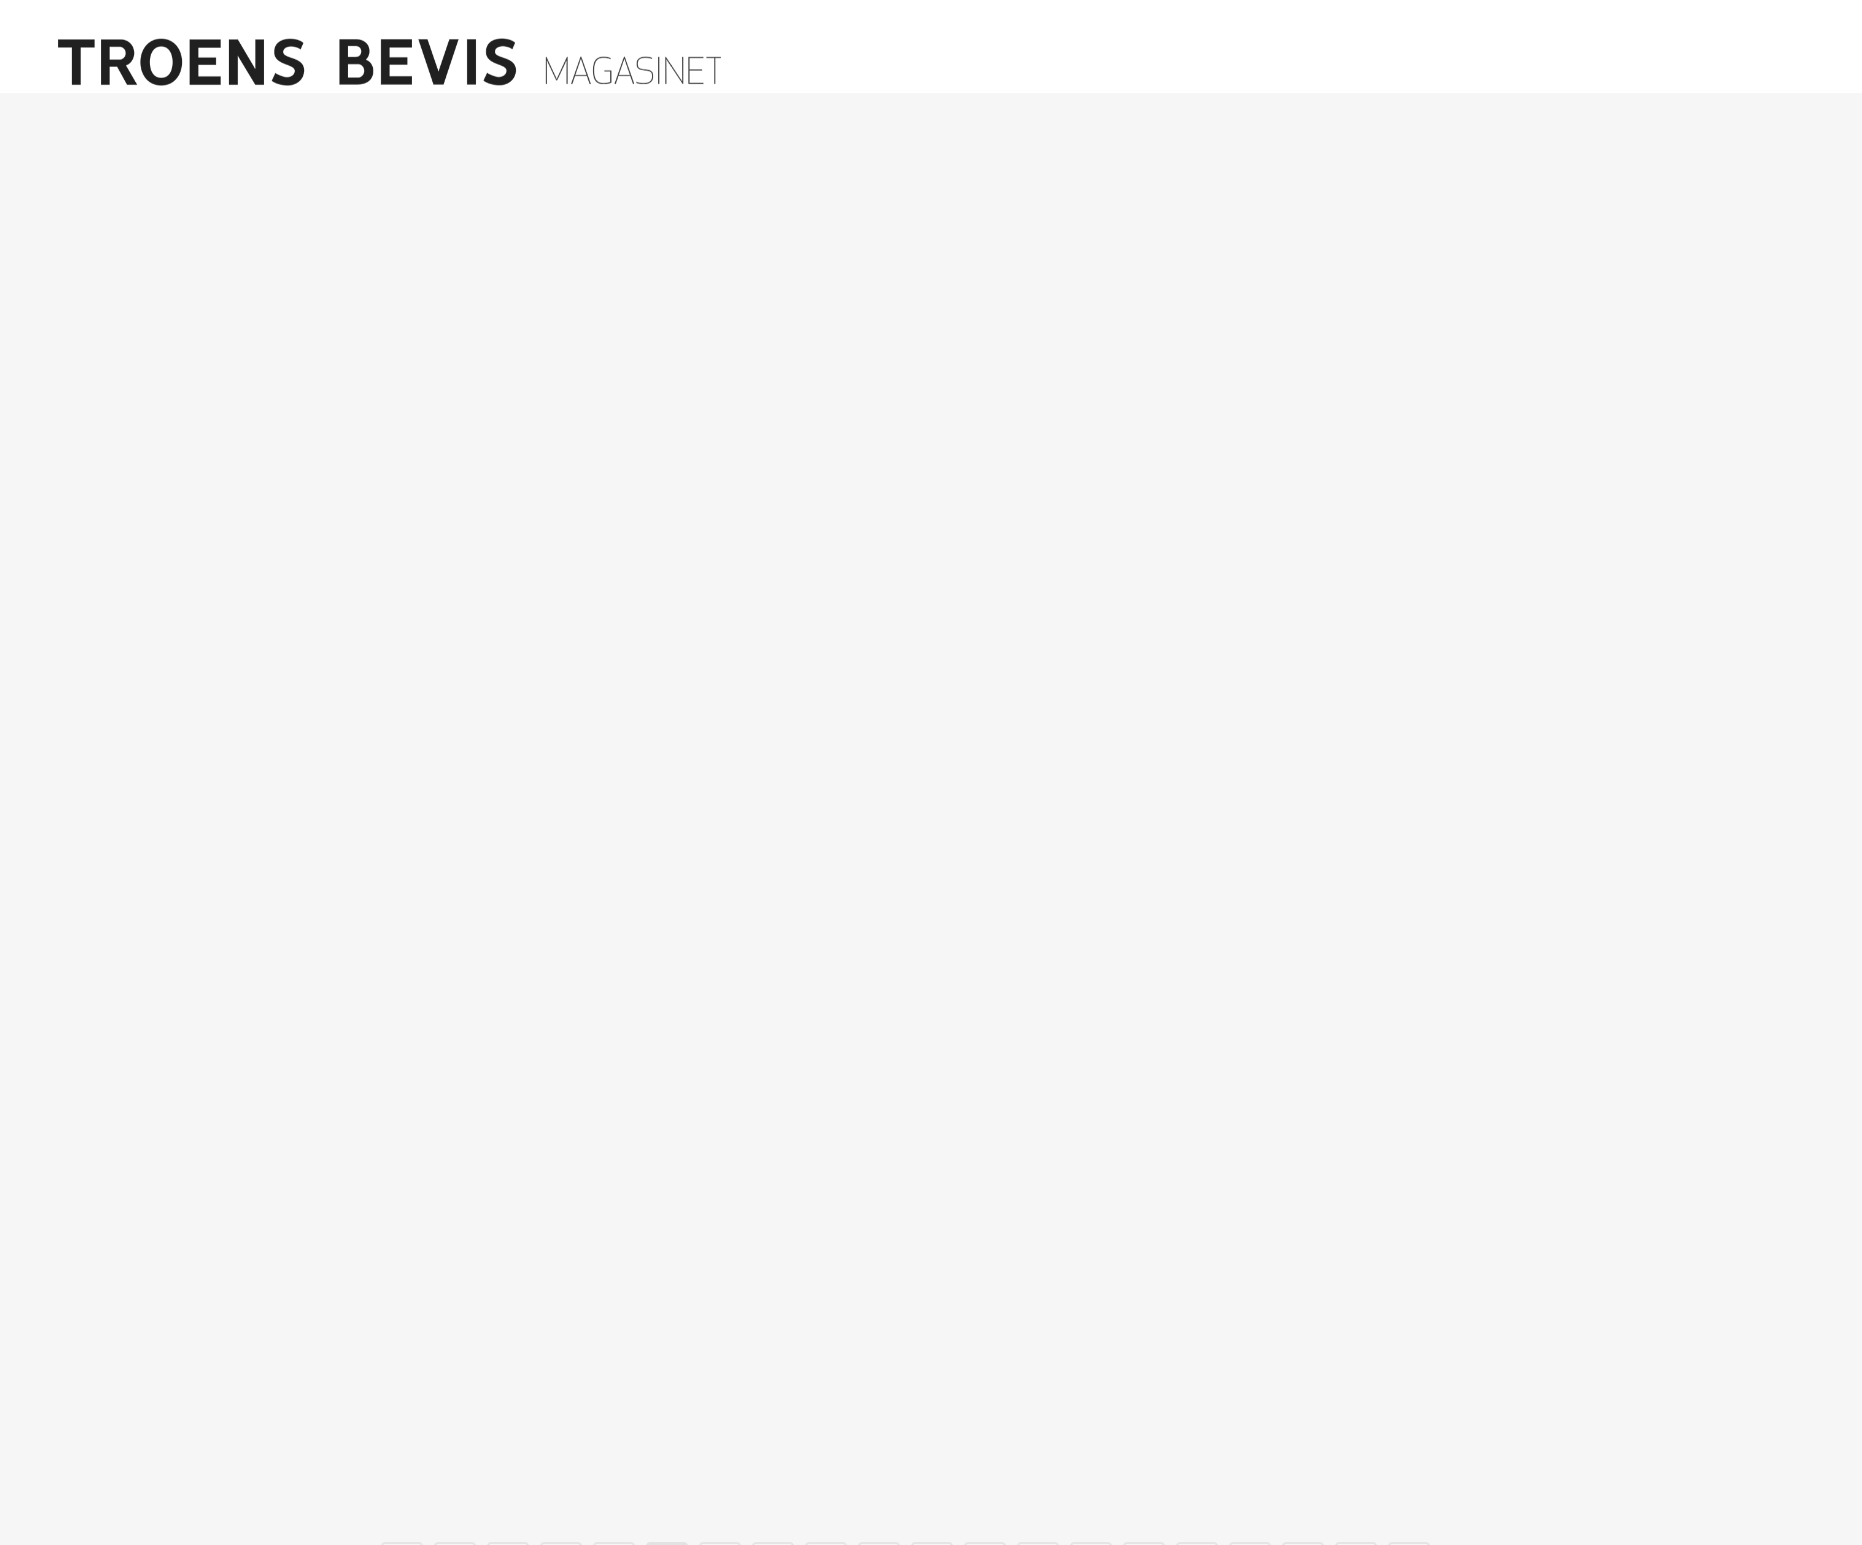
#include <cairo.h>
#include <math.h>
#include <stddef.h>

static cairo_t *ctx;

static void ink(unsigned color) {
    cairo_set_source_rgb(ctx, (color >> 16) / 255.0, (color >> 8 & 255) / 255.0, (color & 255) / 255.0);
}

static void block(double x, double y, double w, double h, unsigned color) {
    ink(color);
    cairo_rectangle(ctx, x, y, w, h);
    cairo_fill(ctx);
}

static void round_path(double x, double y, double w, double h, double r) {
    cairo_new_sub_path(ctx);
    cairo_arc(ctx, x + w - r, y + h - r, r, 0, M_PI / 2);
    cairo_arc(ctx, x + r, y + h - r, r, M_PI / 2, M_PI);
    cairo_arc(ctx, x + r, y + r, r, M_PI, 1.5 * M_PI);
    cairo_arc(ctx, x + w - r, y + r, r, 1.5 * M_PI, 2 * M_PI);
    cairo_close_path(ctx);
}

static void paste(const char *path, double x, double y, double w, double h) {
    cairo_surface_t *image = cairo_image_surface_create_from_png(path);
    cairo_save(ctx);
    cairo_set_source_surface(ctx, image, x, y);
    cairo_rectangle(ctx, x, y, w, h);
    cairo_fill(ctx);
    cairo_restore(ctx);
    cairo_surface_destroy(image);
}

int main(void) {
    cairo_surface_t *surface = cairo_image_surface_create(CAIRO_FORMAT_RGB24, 1862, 1545);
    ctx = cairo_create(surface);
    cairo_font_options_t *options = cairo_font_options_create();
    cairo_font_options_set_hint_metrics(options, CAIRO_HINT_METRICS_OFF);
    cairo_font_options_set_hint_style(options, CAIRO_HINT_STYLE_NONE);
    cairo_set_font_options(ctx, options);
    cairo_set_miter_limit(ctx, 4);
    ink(0xf6f6f6);
    cairo_paint(ctx);
    block(0, 0, 1862, 93, 0xffffff);
    paste("pic1.png", 58, 38, 663, 48);
    round_path(382, 1543, 40, 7, 3);
    ink(0xe5e5e5);
    cairo_stroke(ctx);
    round_path(435, 1543, 40, 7, 3);
    cairo_stroke(ctx);
    round_path(488, 1543, 40, 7, 3);
    cairo_stroke(ctx);
    round_path(541, 1543, 40, 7, 3);
    cairo_stroke(ctx);
    round_path(594, 1543, 40, 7, 3);
    cairo_stroke(ctx);
    ink(0xe3e3e3);
    round_path(647, 1543, 40, 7, 3);
    cairo_fill_preserve(ctx);
    cairo_stroke(ctx);
    round_path(700, 1543, 40, 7, 3);
    ink(0xe5e5e5);
    cairo_stroke(ctx);
    round_path(753, 1543, 40, 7, 3);
    cairo_stroke(ctx);
    round_path(806, 1543, 40, 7, 3);
    cairo_stroke(ctx);
    round_path(859, 1543, 40, 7, 3);
    cairo_stroke(ctx);
    round_path(912, 1543, 40, 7, 3);
    cairo_stroke(ctx);
    round_path(965, 1543, 40, 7, 3);
    cairo_stroke(ctx);
    round_path(1018, 1543, 40, 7, 3);
    cairo_stroke(ctx);
    round_path(1071, 1543, 40, 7, 3);
    cairo_stroke(ctx);
    round_path(1124, 1543, 40, 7, 3);
    cairo_stroke(ctx);
    round_path(1177, 1543, 40, 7, 3);
    cairo_stroke(ctx);
    round_path(1230, 1543, 40, 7, 3);
    cairo_stroke(ctx);
    round_path(1283, 1543, 40, 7, 3);
    cairo_stroke(ctx);
    round_path(1336, 1543, 40, 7, 3);
    cairo_stroke(ctx);
    round_path(1389, 1543, 40, 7, 3);
    cairo_stroke(ctx);
    cairo_surface_write_to_png(surface, "screenshot.png");
    cairo_font_options_destroy(options);
    cairo_destroy(ctx);
    cairo_surface_destroy(surface);
    return 0;
}
